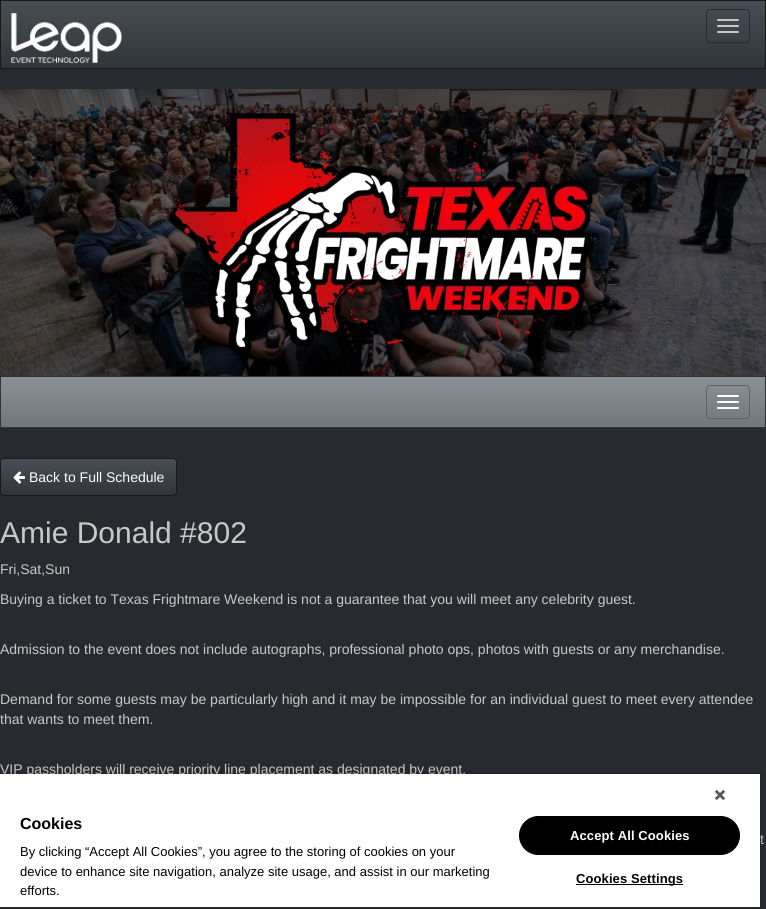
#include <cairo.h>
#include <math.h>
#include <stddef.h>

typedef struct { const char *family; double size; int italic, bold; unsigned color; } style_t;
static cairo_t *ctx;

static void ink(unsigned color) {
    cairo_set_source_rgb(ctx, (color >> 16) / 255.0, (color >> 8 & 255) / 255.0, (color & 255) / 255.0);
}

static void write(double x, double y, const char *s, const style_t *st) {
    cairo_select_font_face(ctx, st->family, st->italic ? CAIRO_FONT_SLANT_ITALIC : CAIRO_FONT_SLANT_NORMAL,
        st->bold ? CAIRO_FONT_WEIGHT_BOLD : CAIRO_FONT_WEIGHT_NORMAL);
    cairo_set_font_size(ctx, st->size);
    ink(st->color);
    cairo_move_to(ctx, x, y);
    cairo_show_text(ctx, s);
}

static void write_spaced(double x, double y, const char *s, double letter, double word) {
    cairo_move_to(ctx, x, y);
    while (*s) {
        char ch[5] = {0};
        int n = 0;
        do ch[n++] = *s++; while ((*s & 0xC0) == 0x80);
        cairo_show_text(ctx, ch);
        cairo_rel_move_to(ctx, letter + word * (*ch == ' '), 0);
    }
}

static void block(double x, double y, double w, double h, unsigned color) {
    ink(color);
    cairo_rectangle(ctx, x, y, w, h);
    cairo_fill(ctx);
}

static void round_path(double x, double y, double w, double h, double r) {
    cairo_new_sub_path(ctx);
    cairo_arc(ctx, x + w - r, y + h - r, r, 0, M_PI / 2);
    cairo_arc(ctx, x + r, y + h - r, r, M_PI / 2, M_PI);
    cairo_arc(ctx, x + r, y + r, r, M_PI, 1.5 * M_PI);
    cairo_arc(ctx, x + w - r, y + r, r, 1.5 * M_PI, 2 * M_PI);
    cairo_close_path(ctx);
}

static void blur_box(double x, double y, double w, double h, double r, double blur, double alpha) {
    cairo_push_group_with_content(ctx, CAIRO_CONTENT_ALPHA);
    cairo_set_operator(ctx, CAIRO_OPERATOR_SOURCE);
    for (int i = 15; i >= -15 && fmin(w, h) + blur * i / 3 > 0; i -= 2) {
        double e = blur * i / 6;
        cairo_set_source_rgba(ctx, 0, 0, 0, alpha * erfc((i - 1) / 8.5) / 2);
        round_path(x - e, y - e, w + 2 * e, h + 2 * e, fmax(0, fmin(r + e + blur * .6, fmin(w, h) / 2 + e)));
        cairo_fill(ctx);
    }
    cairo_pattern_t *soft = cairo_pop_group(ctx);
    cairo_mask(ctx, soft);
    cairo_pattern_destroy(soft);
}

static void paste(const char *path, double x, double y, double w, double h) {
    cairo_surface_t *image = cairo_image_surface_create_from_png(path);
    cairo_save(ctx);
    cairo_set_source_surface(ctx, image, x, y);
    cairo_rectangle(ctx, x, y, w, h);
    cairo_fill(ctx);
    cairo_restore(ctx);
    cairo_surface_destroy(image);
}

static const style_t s1 = {"Liberation Sans", 14, 0, 0, 0xffffff};
static const style_t s2 = {"Liberation Sans", 30, 0, 0, 0xc8c8c8};
static const style_t s3 = {"Liberation Sans", 14, 0, 0, 0xc8c8c8};
static const style_t s4 = {"Liberation Sans", 16, 0, 1, 0x000000};
static const style_t s5 = {"Liberation Sans", 13, 0, 0, 0x000000};

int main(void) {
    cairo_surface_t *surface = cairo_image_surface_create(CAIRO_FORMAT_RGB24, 766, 909);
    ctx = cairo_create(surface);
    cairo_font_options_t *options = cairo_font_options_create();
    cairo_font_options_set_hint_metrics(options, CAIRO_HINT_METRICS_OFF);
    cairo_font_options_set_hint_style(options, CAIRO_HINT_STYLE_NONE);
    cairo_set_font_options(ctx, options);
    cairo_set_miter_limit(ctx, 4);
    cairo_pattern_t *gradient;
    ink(0x272b30);
    cairo_paint(ctx);
    gradient = cairo_pattern_create_linear(383, 1, 383, 68);
    cairo_pattern_add_color_stop_rgba(gradient, 0, 0.282, 0.306, 0.333, 1);
    cairo_pattern_add_color_stop_rgba(gradient, 0.6, 0.227, 0.247, 0.267, 1);
    cairo_pattern_add_color_stop_rgba(gradient, 1, 0.192, 0.208, 0.224, 1);
    cairo_set_source(ctx, gradient);
    cairo_pattern_destroy(gradient);
    cairo_rectangle(ctx, 1, 1, 764, 67);
    cairo_fill(ctx);
    cairo_rectangle(ctx, 0.5, 0.5, 765, 68);
    ink(0x17191b);
    cairo_set_line_width(ctx, 1);
    cairo_stroke(ctx);
    paste("pic1.png", 11, 13, 111, 50);
    round_path(706.5, 9.5, 43, 33, 3.5);
    ink(0x272b2e);
    cairo_stroke(ctx);
    ink(0xc8c8c8);
    round_path(717, 19, 22, 2, 1);
    cairo_fill(ctx);
    round_path(717, 25, 22, 2, 1);
    cairo_fill(ctx);
    round_path(717, 31, 22, 2, 1);
    cairo_fill(ctx);
    paste("pic2.png", 0, 89, 766, 287);
    gradient = cairo_pattern_create_linear(383, 377, 383, 427);
    cairo_pattern_add_color_stop_rgba(gradient, 0, 0.541, 0.569, 0.588, 1);
    cairo_pattern_add_color_stop_rgba(gradient, 0.6, 0.478, 0.51, 0.533, 1);
    cairo_pattern_add_color_stop_rgba(gradient, 1, 0.439, 0.471, 0.49, 1);
    cairo_set_source(ctx, gradient);
    cairo_pattern_destroy(gradient);
    cairo_rectangle(ctx, 1, 377, 764, 50);
    cairo_fill(ctx);
    cairo_rectangle(ctx, 0.5, 376.5, 765, 51);
    ink(0x313436);
    cairo_stroke(ctx);
    round_path(706.5, 385.5, 43, 33, 3.5);
    ink(0x5d6368);
    cairo_stroke(ctx);
    ink(0xffffff);
    round_path(717, 395, 22, 2, 1);
    cairo_fill(ctx);
    round_path(717, 401, 22, 2, 1);
    cairo_fill(ctx);
    round_path(717, 407, 22, 2, 1);
    cairo_fill(ctx);
    ink(0x3a3f44);
    round_path(0, 458, 177, 38, 4);
    cairo_fill(ctx);
    cairo_save(ctx);
    round_path(0, 458, 177, 38, 4);
    cairo_clip(ctx);
    gradient = cairo_pattern_create_linear(89, 459, 89, 495);
    cairo_pattern_add_color_stop_rgba(gradient, 0, 0.282, 0.306, 0.333, 1);
    cairo_pattern_add_color_stop_rgba(gradient, 0.6, 0.227, 0.247, 0.267, 1);
    cairo_pattern_add_color_stop_rgba(gradient, 1, 0.192, 0.208, 0.224, 1);
    cairo_set_source(ctx, gradient);
    cairo_pattern_destroy(gradient);
    cairo_rectangle(ctx, 1, 459, 175, 36);
    cairo_fill(ctx);
    cairo_restore(ctx);
    round_path(0.5, 458.5, 176, 37, 3.5);
    cairo_set_source_rgba(ctx, 0, 0, 0, 0.6);
    cairo_stroke(ctx);
    paste("pic3.png", 13, 471, 12, 13);
    write(29, 482, "Back to Full Schedule", &s1);
    write(0, 543, "Amie Donald #802", &s2);
    write(0, 574, "Fri,Sat,Sun", &s3);
    write(0, 604, "Buying a ticket to Texas Frightmare Weekend is not a guarantee that you will meet any celebrity guest.", &s3);
    write(0, 654, "Admission to the event does not include autographs, professional photo ops, photos with guests or any merchandise.", &s3);
    write(0, 704, "Demand for some guests may be particularly high and it may be impossible for an individual guest to meet every attendee", &s3);
    write(0, 724, "that wants to meet them.", &s3);
    write(0, 774, "VIP passholders will receive priority line placement as designated by event.", &s3);
    write(760, 844, "t", &s3);
    cairo_save(ctx);
    cairo_set_fill_rule(ctx, CAIRO_FILL_RULE_EVEN_ODD);
    cairo_new_path(ctx);
    cairo_move_to(ctx, 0, 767);
    cairo_line_to(ctx, 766, 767);
    cairo_line_to(ctx, 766, 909);
    cairo_line_to(ctx, 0, 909);
    cairo_close_path(ctx);
    cairo_move_to(ctx, 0, 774);
    cairo_line_to(ctx, 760, 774);
    cairo_line_to(ctx, 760, 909);
    cairo_line_to(ctx, 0, 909);
    cairo_close_path(ctx);
    cairo_clip(ctx);
    ink(0x000000);
    blur_box(0, 774, 760, 135, 0, 2, 0.35);
    cairo_restore(ctx);
    cairo_save(ctx);
    cairo_rectangle(ctx, 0, 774, 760, 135);
    cairo_clip(ctx);
    ink(0x000000);
    blur_box(0, 774, 760, 133, 0, 2, 0.2);
    cairo_restore(ctx);
    block(0, 774, 760, 133, 0xffffff);
    paste("pic4.png", 715, 790, 10, 10);
    write(20, 829, "Cookies", &s4);
    write(20, 856, "By clicking “Accept All Cookies”, you agree to the storing of cookies on your", &s5);
    write(20, 876, "device to enhance site navigation, analyze site usage, and assist in our marketing", &s5);
    write(20, 895, "efforts.", &s5);
    round_path(519.5, 816.5, 220, 38, 19);
    cairo_fill_preserve(ctx);
    cairo_stroke(ctx);
    cairo_select_font_face(ctx, "Liberation Sans", CAIRO_FONT_SLANT_NORMAL, CAIRO_FONT_WEIGHT_BOLD);
    ink(0xffffff);
    write_spaced(570, 840, "Accept All Cookies", 0.1, 0);
    block(576, 884, 107, 1, 0x000000);
    write_spaced(576, 883, "Cookies Settings", 0.1, 0);
    cairo_surface_write_to_png(surface, "screenshot.png");
    cairo_font_options_destroy(options);
    cairo_destroy(ctx);
    cairo_surface_destroy(surface);
    return 0;
}
